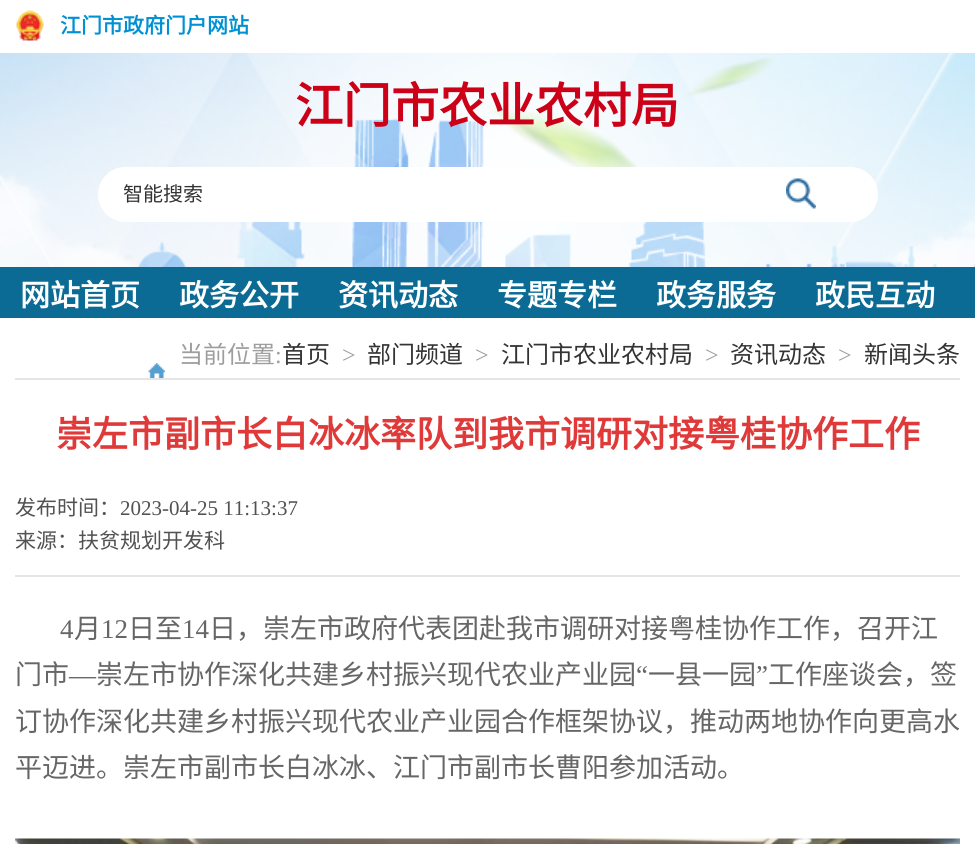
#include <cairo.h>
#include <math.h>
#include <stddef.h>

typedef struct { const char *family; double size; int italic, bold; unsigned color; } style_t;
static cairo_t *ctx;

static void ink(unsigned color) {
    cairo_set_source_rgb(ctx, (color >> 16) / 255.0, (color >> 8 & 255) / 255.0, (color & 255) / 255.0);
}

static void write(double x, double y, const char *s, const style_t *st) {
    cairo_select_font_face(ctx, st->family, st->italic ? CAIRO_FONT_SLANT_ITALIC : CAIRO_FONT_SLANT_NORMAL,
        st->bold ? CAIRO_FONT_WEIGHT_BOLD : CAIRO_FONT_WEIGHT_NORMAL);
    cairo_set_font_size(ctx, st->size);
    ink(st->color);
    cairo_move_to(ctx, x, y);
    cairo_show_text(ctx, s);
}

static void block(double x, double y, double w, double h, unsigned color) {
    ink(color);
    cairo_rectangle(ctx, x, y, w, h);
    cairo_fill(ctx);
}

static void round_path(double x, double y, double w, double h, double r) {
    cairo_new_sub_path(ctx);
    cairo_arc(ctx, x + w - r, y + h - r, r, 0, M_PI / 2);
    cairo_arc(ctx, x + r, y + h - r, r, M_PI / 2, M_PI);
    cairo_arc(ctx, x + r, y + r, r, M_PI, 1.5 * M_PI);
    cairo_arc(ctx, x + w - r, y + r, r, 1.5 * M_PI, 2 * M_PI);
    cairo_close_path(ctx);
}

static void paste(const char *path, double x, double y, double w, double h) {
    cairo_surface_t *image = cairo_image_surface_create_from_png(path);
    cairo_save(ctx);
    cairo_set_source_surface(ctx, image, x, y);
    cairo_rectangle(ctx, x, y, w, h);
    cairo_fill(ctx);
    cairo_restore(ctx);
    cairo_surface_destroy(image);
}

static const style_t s1 = {"Noto Sans CJK SC", 21, 0, 1, 0x0090d3};
static const style_t s2 = {"Noto Sans CJK SC", 48, 0, 1, 0xcc0016};
static const style_t s3 = {"Noto Sans CJK SC", 20, 0, 0, 0x333333};
static const style_t s4 = {"Noto Sans CJK SC", 30, 0, 1, 0xffffff};
static const style_t s5 = {"Noto Sans CJK SC", 24, 0, 0, 0x9e9e9e};
static const style_t s6 = {"Liberation Serif", 24, 0, 0, 0x9e9e9e};
static const style_t s7 = {"Noto Sans CJK SC", 24, 0, 0, 0x333333};
static const style_t s8 = {"Noto Sans CJK SC", 36, 0, 1, 0xdf3a39};
static const style_t s9 = {"Noto Sans CJK SC", 21, 0, 0, 0x525252};
static const style_t s10 = {"Liberation Serif", 21, 0, 0, 0x525252};
static const style_t s11 = {"Liberation Serif", 27, 0, 0, 0x666666};
static const style_t s12 = {"Noto Sans CJK SC", 27, 0, 0, 0x666666};

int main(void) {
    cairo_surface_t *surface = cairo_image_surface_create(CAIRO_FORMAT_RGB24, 975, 844);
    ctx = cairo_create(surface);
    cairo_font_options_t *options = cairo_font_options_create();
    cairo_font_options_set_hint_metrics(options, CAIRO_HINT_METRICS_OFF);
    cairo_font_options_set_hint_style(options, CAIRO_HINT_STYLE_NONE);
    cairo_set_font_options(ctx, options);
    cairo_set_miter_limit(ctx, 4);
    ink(0xf9fbfd);
    cairo_paint(ctx);
    paste("pic1.png", 0, 53, 975, 214);
    block(0, 0, 975, 53, 0xffffff);
    paste("pic2.png", 16, 10, 28, 31);
    write(60, 33, "江门市政府门户网站", &s1);
    write(295, 123, "江门市农业农村局", &s2);
    ink(0xffffff);
    round_path(98, 167, 780, 55, 27.5);
    cairo_fill(ctx);
    write(123, 201, "智能搜索", &s3);
    paste("pic3.png", 786, 178, 30, 31);
    block(0, 267, 975, 51, 0x0b6b95);
    write(20, 306, "网站首页", &s4);
    write(179, 306, "政务公开", &s4);
    write(338, 306, "资讯动态", &s4);
    write(497, 306, "专题专栏", &s4);
    write(656, 306, "政务服务", &s4);
    write(815, 306, "政民互动", &s4);
    block(0, 318, 975, 526, 0xffffff);
    block(15, 378, 945, 2, 0xe5e5e5);
    paste("pic4.png", 148, 363, 17, 15);
    write(179, 363, "当前位置", &s5);
    write(275, 363, ":", &s6);
    write(282, 363, "首页", &s7);
    write(342, 363, ">", &s6);
    write(367, 363, "部门频道", &s7);
    write(475, 363, ">", &s6);
    write(501, 363, "江门市农业农村局", &s7);
    write(705, 363, ">", &s6);
    write(730, 363, "资讯动态", &s7);
    write(838, 363, ">", &s6);
    write(864, 363, "新闻头条", &s7);
    write(56, 447, "崇左市副市长白冰冰率队到我市调研对接粤桂协作工作", &s8);
    block(15, 575, 945, 2, 0xe5e5e5);
    write(15, 515, "发布时间：", &s9);
    write(120, 515, "2023-04-25 11:13:37", &s10);
    write(15, 548, "来源：扶贫规划开发科", &s9);
    write(60, 638, "4", &s11);
    write(74, 638, "月", &s12);
    write(101, 638, "12", &s11);
    write(128, 638, "日至", &s12);
    write(182, 638, "14", &s11);
    write(209, 638, "日，崇左市政府代表团赴我市调研对接粤桂协作工作，召开江", &s12);
    write(15, 684, "门市", &s12);
    write(96, 684, "崇左市协作深化共建乡村振兴现代农业产业园", &s12);
    write(636, 684, "“", &s11);
    write(648, 684, "一县一园", &s12);
    write(756, 684, "”", &s11);
    write(768, 684, "工作座谈会，签", &s12);
    write(69, 684, "—", &s11);
    write(15, 731, "订协作深化共建乡村振兴现代农业产业园合作框架协议，推动两地协作向更高水", &s12);
    write(15, 777, "平迈进。崇左市副市长白冰冰、江门市副市长曹阳参加活动。", &s12);
    paste("pic5.png", 15, 838, 945, 6);
    cairo_surface_write_to_png(surface, "screenshot.png");
    cairo_font_options_destroy(options);
    cairo_destroy(ctx);
    cairo_surface_destroy(surface);
    return 0;
}
